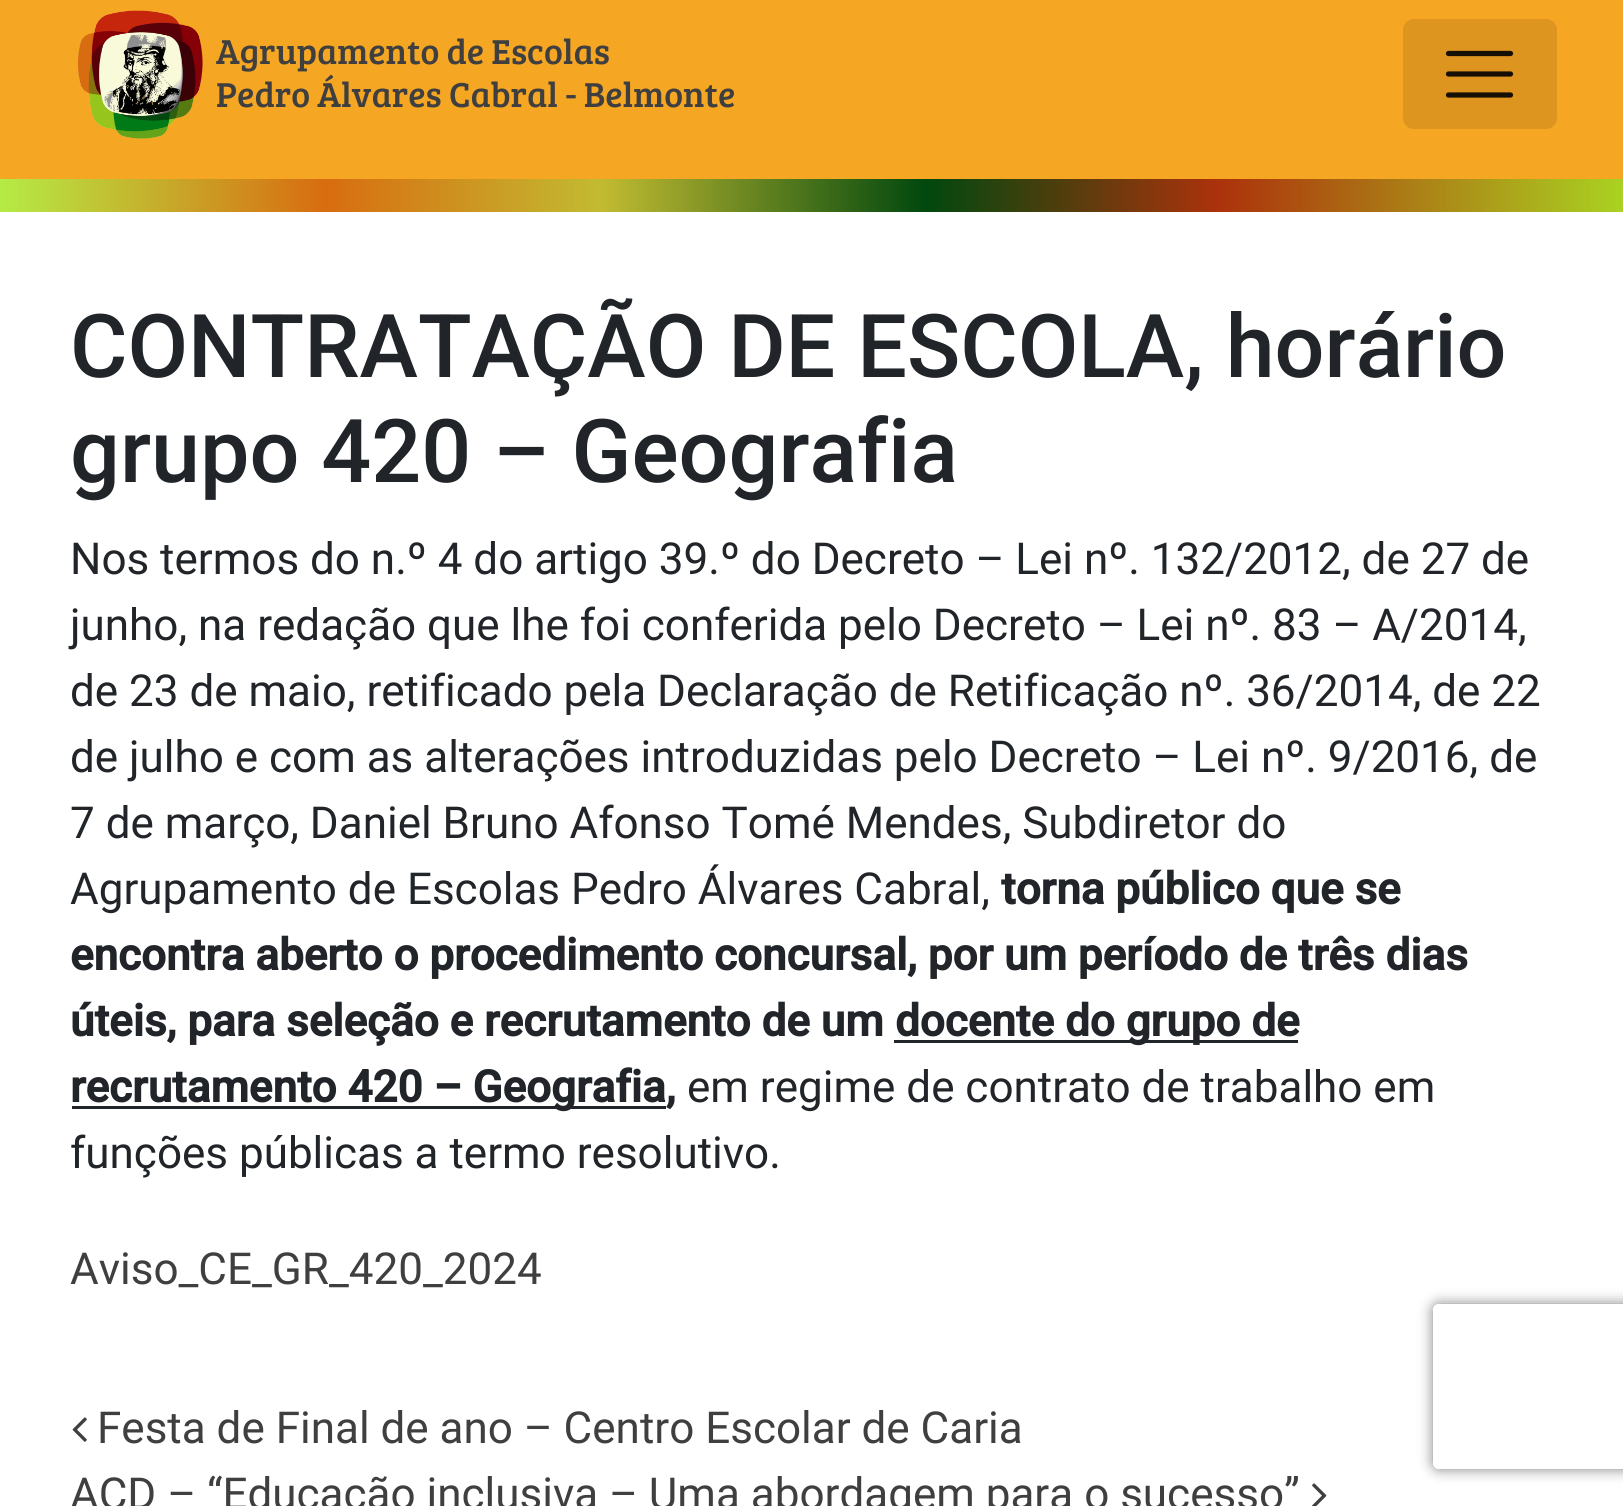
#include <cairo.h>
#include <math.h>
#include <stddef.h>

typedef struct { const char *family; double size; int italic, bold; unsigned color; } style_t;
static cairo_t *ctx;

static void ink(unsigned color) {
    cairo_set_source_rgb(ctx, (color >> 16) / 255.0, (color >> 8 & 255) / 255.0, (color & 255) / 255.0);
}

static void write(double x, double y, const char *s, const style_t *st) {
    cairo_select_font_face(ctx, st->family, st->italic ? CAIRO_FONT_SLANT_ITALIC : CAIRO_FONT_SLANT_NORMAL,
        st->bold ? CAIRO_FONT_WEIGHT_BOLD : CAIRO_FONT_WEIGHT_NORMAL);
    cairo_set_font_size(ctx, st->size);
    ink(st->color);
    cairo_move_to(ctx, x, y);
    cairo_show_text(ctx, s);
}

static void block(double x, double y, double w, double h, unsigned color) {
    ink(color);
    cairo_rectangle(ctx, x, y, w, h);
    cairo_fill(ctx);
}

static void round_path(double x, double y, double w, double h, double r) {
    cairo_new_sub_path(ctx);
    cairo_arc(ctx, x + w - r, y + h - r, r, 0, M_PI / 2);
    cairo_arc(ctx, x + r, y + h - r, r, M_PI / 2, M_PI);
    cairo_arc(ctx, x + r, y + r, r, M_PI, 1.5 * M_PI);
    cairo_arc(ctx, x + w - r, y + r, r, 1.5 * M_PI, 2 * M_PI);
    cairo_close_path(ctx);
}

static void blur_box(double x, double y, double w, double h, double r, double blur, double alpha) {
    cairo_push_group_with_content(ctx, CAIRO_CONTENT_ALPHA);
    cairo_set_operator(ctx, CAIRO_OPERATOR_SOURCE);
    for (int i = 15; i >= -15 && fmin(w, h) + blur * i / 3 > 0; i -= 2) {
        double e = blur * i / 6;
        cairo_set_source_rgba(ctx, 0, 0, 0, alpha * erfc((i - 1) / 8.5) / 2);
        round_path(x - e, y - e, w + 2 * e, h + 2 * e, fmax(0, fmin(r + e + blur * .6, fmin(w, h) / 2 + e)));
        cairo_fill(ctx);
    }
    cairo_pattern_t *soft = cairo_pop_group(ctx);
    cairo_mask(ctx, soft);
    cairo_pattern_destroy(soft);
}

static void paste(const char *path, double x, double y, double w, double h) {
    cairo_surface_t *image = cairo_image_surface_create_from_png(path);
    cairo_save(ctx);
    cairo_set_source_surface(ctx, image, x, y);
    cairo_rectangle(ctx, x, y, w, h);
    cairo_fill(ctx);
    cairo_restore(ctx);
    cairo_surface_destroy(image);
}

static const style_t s1 = {"Bree Serif", 35.75, 0, 0, 0x3f3f3f};
static const style_t s2 = {"Roboto Medium", 88, 0, 0, 0x212529};
static const style_t s3 = {"Roboto", 44, 0, 0, 0x212529};
static const style_t s4 = {"Roboto", 44, 0, 1, 0x212529};
static const style_t s5 = {"Roboto", 44, 0, 0, 0x3f3f3f};

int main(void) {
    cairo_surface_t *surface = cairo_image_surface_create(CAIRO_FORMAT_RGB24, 1623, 1506);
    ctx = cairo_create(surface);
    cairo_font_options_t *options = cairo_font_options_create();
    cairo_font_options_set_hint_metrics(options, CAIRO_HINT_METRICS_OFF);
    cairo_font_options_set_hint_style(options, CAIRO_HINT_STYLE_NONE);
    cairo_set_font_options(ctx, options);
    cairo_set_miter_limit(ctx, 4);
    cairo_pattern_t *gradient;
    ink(0xffffff);
    cairo_paint(ctx);
    block(0, 0, 1623, 179, 0xf5a623);
    paste("pic1.png", 77, 10, 126, 129);
    write(216, 64, "Agrupamento de Escolas", &s1);
    write(216, 107, "Pedro Álvares Cabral - Belmonte", &s1);
    ink(0xdd9520);
    round_path(1403, 19, 154, 110, 11);
    cairo_fill(ctx);
    cairo_new_path(ctx);
    cairo_move_to(ctx, 1448.5, 53.5);
    cairo_line_to(ctx, 1510.5, 53.5);
    cairo_move_to(ctx, 1448.5, 74);
    cairo_line_to(ctx, 1510.5, 74);
    cairo_move_to(ctx, 1448.5, 95);
    cairo_line_to(ctx, 1510.5, 95);
    ink(0x160f03);
    cairo_set_line_width(ctx, 5.2);
    cairo_set_line_cap(ctx, CAIRO_LINE_CAP_ROUND);
    cairo_stroke(ctx);
    gradient = cairo_pattern_create_linear(0, 212, 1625, 212);
    cairo_pattern_add_color_stop_rgba(gradient, 0, 0.71, 0.922, 0.271, 1);
    cairo_pattern_add_color_stop_rgba(gradient, 0.2, 0.847, 0.424, 0.063, 1);
    cairo_pattern_add_color_stop_rgba(gradient, 0.37, 0.761, 0.733, 0.192, 1);
    cairo_pattern_add_color_stop_rgba(gradient, 0.57, 0.004, 0.282, 0.055, 1);
    cairo_pattern_add_color_stop_rgba(gradient, 0.75, 0.675, 0.196, 0.047, 1);
    cairo_pattern_add_color_stop_rgba(gradient, 1, 0.667, 0.827, 0.129, 1);
    cairo_set_source(ctx, gradient);
    cairo_pattern_destroy(gradient);
    cairo_rectangle(ctx, 0, 179, 1623, 33);
    cairo_fill(ctx);
    write(70, 377, "CONTRATAÇÃO DE ESCOLA, horário", &s2);
    write(70, 482, "grupo 420 – Geografia", &s2);
    write(70, 574, "Nos termos do n.º 4 do artigo 39.º do Decreto – Lei nº. 132/2012, de 27 de", &s3);
    write(70, 640, "junho, na redação que lhe foi conferida pelo Decreto – Lei nº. 83 – A/2014,", &s3);
    write(70, 706, "de 23 de maio, retificado pela Declaração de Retificação nº. 36/2014, de 22", &s3);
    write(70, 772, "de julho e com as alterações introduzidas pelo Decreto – Lei nº. 9/2016, de", &s3);
    write(70, 838, "7 de março, Daniel Bruno Afonso Tomé Mendes, Subdiretor do", &s3);
    write(70, 904, "Agrupamento de Escolas Pedro Álvares Cabral,", &s3);
    write(1001, 904, "torna público que se", &s4);
    write(70, 970, "encontra aberto o procedimento concursal, por um período de três dias", &s4);
    write(70, 1036, "úteis, para seleção e recrutamento de um", &s4);
    block(894, 1040, 404, 3, 0x212529);
    write(895, 1036, "docente do grupo de", &s4);
    block(72, 1106, 594, 3, 0x212529);
    write(70, 1102, "recrutamento 420 – Geografia,", &s4);
    write(687, 1102, "em regime de contrato de trabalho em", &s3);
    write(70, 1168, "funções públicas a termo resolutivo.", &s3);
    write(70, 1284, "Aviso_CE_GR_420_2024", &s5);
    paste("pic2.png", 72, 1417, 15, 25);
    write(97, 1443, "Festa de Final de ano – Centro Escolar de Caria", &s5);
    write(70, 1509, "ACD – “Educação inclusiva – Uma abordagem para o sucesso”", &s5);
    paste("pic3.png", 1312, 1483, 15, 23);
    cairo_save(ctx);
    cairo_set_fill_rule(ctx, CAIRO_FILL_RULE_EVEN_ODD);
    cairo_new_path(ctx);
    cairo_move_to(ctx, 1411, 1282);
    cairo_line_to(ctx, 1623, 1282);
    cairo_line_to(ctx, 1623, 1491);
    cairo_line_to(ctx, 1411, 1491);
    cairo_close_path(ctx);
    cairo_move_to(ctx, 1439, 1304);
    cairo_line_to(ctx, 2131, 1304);
    cairo_curve_to(ctx, 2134.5, 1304, 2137, 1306.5, 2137, 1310);
    cairo_line_to(ctx, 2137, 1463);
    cairo_curve_to(ctx, 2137, 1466.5, 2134.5, 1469, 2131, 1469);
    cairo_line_to(ctx, 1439, 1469);
    cairo_curve_to(ctx, 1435.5, 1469, 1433, 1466.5, 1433, 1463);
    cairo_line_to(ctx, 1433, 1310);
    cairo_curve_to(ctx, 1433, 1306.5, 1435.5, 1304, 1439, 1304);
    cairo_close_path(ctx);
    cairo_clip(ctx);
    ink(0x808080);
    blur_box(1433, 1304, 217, 165, 6, 7, 1);
    cairo_restore(ctx);
    cairo_surface_write_to_png(surface, "screenshot.png");
    cairo_font_options_destroy(options);
    cairo_destroy(ctx);
    cairo_surface_destroy(surface);
    return 0;
}
